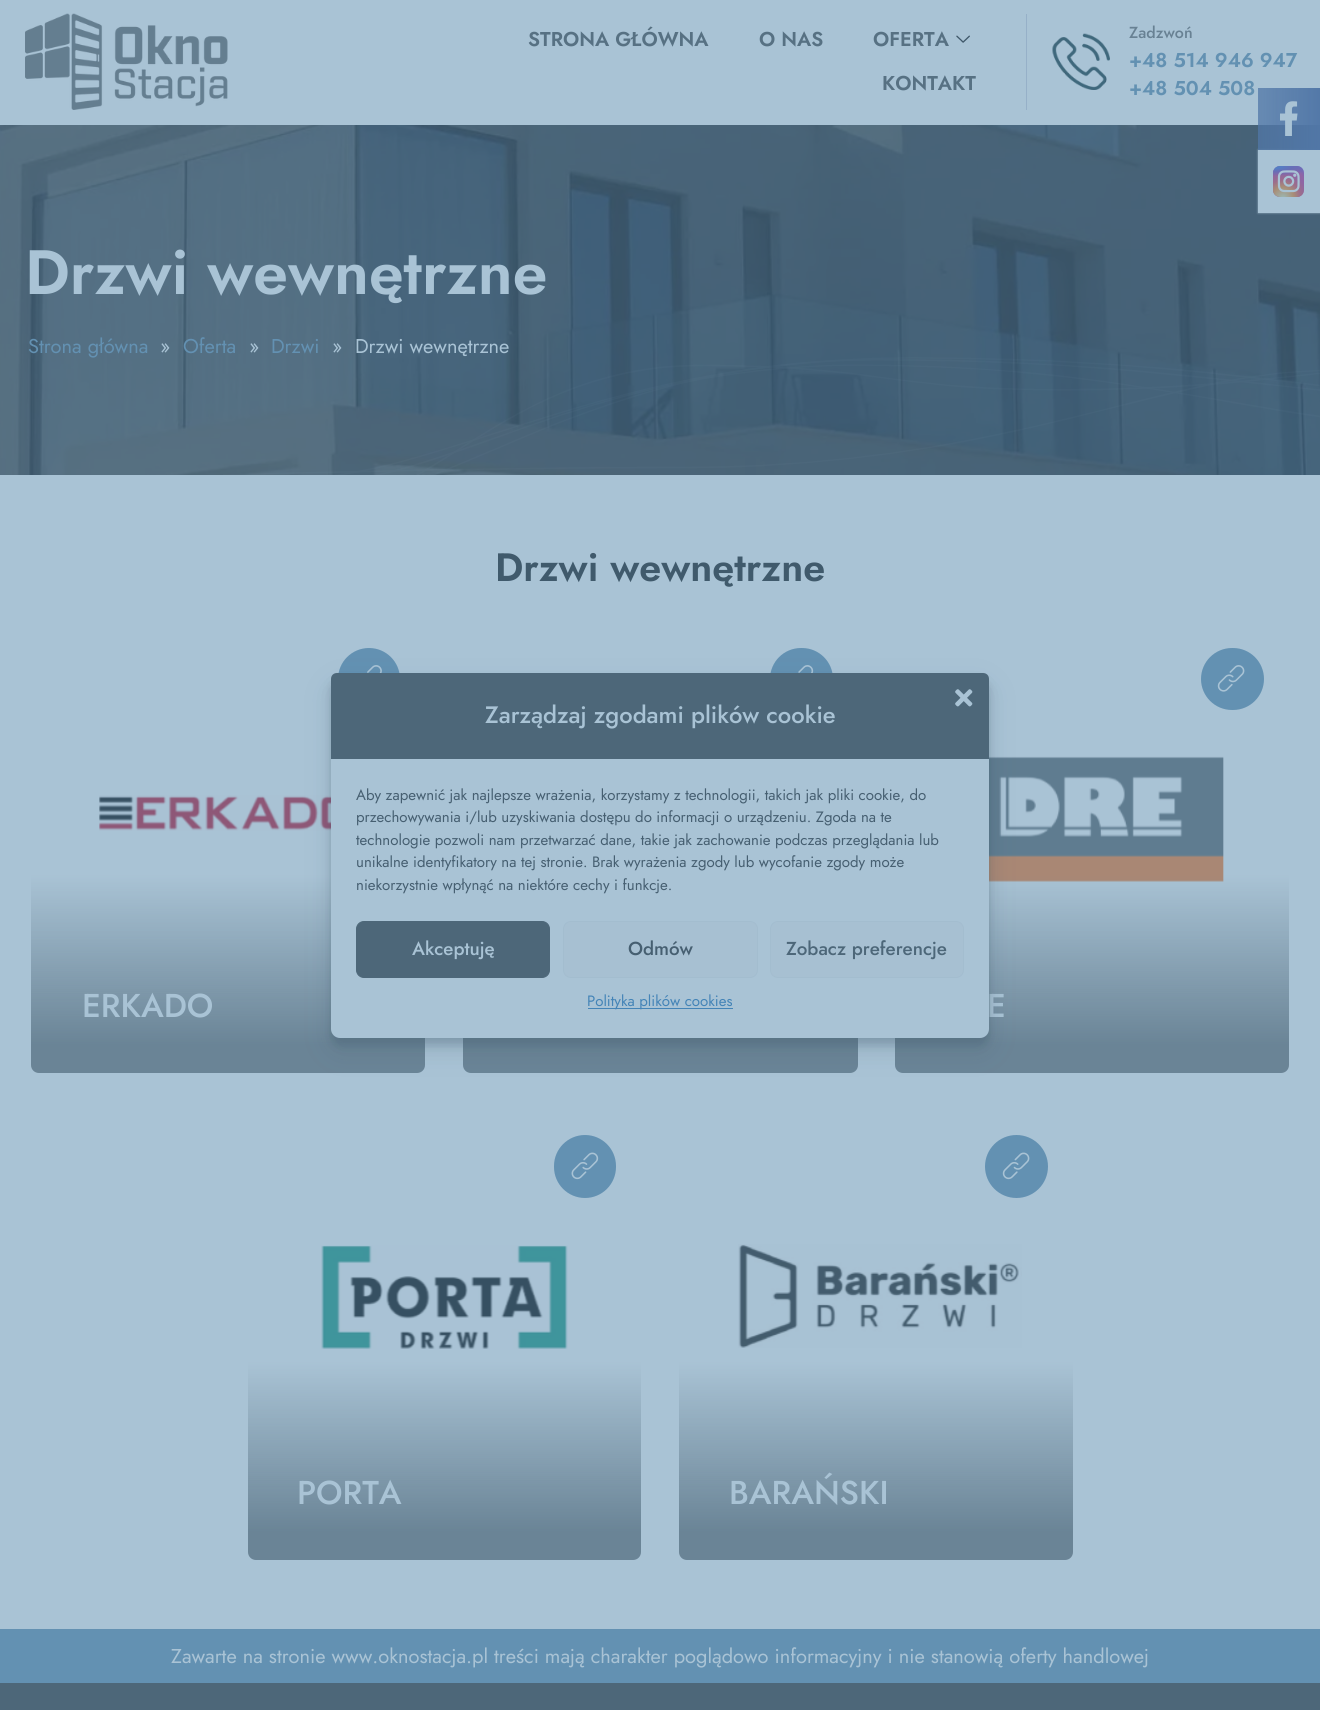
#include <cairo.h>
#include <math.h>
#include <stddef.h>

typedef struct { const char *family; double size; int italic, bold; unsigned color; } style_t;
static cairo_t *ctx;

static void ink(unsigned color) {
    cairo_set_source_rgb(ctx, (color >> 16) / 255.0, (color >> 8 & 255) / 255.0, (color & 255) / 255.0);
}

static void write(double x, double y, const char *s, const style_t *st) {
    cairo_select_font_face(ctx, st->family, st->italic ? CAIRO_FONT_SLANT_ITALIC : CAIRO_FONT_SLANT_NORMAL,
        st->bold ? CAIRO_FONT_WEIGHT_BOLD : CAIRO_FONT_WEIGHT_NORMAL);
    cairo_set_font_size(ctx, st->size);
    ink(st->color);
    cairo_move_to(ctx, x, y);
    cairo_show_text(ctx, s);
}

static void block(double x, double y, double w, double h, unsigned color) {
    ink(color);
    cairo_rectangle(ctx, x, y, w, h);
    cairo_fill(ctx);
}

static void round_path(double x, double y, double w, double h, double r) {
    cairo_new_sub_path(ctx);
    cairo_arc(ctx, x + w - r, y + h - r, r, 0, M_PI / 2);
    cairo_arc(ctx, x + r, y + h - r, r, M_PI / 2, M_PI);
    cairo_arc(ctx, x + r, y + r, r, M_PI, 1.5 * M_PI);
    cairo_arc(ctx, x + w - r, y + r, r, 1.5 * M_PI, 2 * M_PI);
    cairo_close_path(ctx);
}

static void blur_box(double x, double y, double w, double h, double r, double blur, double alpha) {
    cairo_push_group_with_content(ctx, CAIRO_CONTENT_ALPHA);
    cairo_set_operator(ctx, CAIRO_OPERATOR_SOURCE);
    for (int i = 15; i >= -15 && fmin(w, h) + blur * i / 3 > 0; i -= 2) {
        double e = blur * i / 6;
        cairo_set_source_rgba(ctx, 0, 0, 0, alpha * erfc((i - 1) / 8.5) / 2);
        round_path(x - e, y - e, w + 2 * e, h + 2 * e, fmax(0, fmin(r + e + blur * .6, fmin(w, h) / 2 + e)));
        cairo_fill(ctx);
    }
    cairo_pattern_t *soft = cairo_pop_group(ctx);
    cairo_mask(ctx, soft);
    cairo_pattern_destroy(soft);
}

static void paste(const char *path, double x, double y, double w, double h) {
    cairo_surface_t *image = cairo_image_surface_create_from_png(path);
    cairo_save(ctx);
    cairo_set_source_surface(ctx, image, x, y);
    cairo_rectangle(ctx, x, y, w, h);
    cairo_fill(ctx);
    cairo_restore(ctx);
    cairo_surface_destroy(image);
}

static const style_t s1 = {"Jost SemiBold", 20, 0, 0, 0x577183};
static const style_t s2 = {"Jost Medium", 16, 0, 0, 0x688193};
static const style_t s3 = {"Jost SemiBold", 20, 0, 0, 0x6391b2};
static const style_t s4 = {"Jost SemiBold", 62.5, 0, 0, 0xa9c3d5};
static const style_t s5 = {"Jost", 20, 0, 0, 0x6391b2};
static const style_t s6 = {"Jost", 20, 0, 0, 0xa9c3d5};
static const style_t s7 = {"Jost SemiBold", 39.5, 0, 0, 0x405a6c};
static const style_t s8 = {"Jost Medium", 33, 0, 0, 0xa9c3d5};
static const style_t s9 = {"Jost Medium", 23.75, 0, 0, 0xa9c3d5};
static const style_t s10 = {"Jost", 15, 0, 0, 0x465f71};
static const style_t s11 = {"Jost Medium", 18.75, 0, 0, 0xa9c3d5};
static const style_t s12 = {"Jost Medium", 18.75, 0, 0, 0x465f71};
static const style_t s13 = {"Jost Medium", 18.75, 0, 0, 0x4d6779};
static const style_t s14 = {"Jost", 15, 0, 0, 0x4484b7};

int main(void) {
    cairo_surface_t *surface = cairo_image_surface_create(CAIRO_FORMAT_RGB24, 1320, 1710);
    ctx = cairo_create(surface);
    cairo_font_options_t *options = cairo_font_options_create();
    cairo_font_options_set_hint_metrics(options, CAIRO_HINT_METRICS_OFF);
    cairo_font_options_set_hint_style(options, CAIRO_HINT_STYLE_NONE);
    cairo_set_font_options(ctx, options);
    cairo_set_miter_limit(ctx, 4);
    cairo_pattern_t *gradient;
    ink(0xa9c3d5);
    cairo_paint(ctx);
    paste("pic1.png", 25, 13, 203, 97);
    block(1026, 14, 1, 96, 0x96b0c8);
    write(528, 46, "STRONA GŁÓWNA", &s1);
    write(759, 46, "O NAS", &s1);
    write(873, 46, "OFERTA", &s1);
    paste("pic2.png", 956, 35, 14, 8);
    write(882, 90, "KONTAKT", &s1);
    paste("pic3.png", 1052, 33, 58, 57);
    write(1129, 38, "Zadzwoń", &s2);
    write(1129, 67, "+48 514 946 947", &s3);
    write(1129, 95, "+48 504 508", &s3);
    paste("pic4.png", 0, 125, 1320, 350);
    write(25, 294, "Drzwi wewnętrzne", &s4);
    write(28, 353, "Strona główna", &s5);
    write(160, 353, "»", &s6);
    write(183, 353, "Oferta", &s5);
    write(249, 353, "»", &s6);
    write(271, 353, "Drzwi", &s5);
    write(332, 353, "»", &s6);
    write(355, 353, "Drzwi wewnętrzne", &s6);
    paste("pic5.png", 223, 357, 1097, 118);
    write(495, 581, "Drzwi wewnętrzne", &s7);
    paste("pic6.png", 99, 795, 232, 36);
    ink(0x6391b2);
    cairo_arc(ctx, 369, 679, 31, 0, 2 * M_PI);
    cairo_fill(ctx);
    paste("pic7.png", 367, 665, 15, 8);
    gradient = cairo_pattern_create_linear(228, 789, 228, 1073);
    cairo_pattern_add_color_stop_rgba(gradient, 0.3, 0.416, 0.518, 0.588, 0);
    cairo_pattern_add_color_stop_rgba(gradient, 0.9, 0.416, 0.518, 0.588, 1);
    cairo_set_source(ctx, gradient);
    cairo_pattern_destroy(gradient);
    cairo_new_path(ctx);
    cairo_move_to(ctx, 31, 789);
    cairo_line_to(ctx, 425, 789);
    cairo_line_to(ctx, 425, 1065);
    cairo_curve_to(ctx, 425, 1069.5, 421.5, 1073, 417, 1073);
    cairo_line_to(ctx, 39, 1073);
    cairo_curve_to(ctx, 34.5, 1073, 31, 1069.5, 31, 1065);
    cairo_close_path(ctx);
    cairo_fill(ctx);
    write(82, 1017, "ERKADO", &s8);
    ink(0x6391b2);
    round_path(770, 648, 63, 62, 31);
    cairo_fill(ctx);
    paste("pic8.png", 798, 665, 16, 8);
    gradient = cairo_pattern_create_linear(660, 789, 660, 1073);
    cairo_pattern_add_color_stop_rgba(gradient, 0.3, 0.416, 0.518, 0.588, 0);
    cairo_pattern_add_color_stop_rgba(gradient, 0.9, 0.416, 0.518, 0.588, 1);
    cairo_set_source(ctx, gradient);
    cairo_pattern_destroy(gradient);
    cairo_new_path(ctx);
    cairo_move_to(ctx, 463, 789);
    cairo_line_to(ctx, 858, 789);
    cairo_line_to(ctx, 858, 1065);
    cairo_curve_to(ctx, 858, 1069.5, 854.5, 1073, 850, 1073);
    cairo_line_to(ctx, 471, 1073);
    cairo_curve_to(ctx, 466.5, 1073, 463, 1069.5, 463, 1065);
    cairo_close_path(ctx);
    cairo_fill(ctx);
    paste("pic9.png", 989, 756, 235, 126);
    ink(0x6391b2);
    round_path(1201, 648, 63, 62, 31);
    cairo_fill(ctx);
    paste("pic10.png", 1217, 665, 28, 27);
    gradient = cairo_pattern_create_linear(1092, 789, 1092, 1073);
    cairo_pattern_add_color_stop_rgba(gradient, 0.3, 0.416, 0.518, 0.588, 0);
    cairo_pattern_add_color_stop_rgba(gradient, 0.9, 0.416, 0.518, 0.588, 1);
    cairo_set_source(ctx, gradient);
    cairo_pattern_destroy(gradient);
    cairo_new_path(ctx);
    cairo_move_to(ctx, 895, 789);
    cairo_line_to(ctx, 1289, 789);
    cairo_line_to(ctx, 1289, 1065);
    cairo_curve_to(ctx, 1289, 1069.5, 1285.5, 1073, 1281, 1073);
    cairo_line_to(ctx, 903, 1073);
    cairo_curve_to(ctx, 898.5, 1073, 895, 1069.5, 895, 1065);
    cairo_close_path(ctx);
    cairo_fill(ctx);
    write(987, 1017, "E", &s8);
    paste("pic11.png", 321, 1245, 247, 105);
    ink(0x6391b2);
    round_path(554, 1135, 62, 63, 31);
    cairo_fill(ctx);
    paste("pic12.png", 571, 1152, 28, 28);
    gradient = cairo_pattern_create_linear(444, 1276, 444, 1560);
    cairo_pattern_add_color_stop_rgba(gradient, 0.3, 0.416, 0.518, 0.588, 0);
    cairo_pattern_add_color_stop_rgba(gradient, 0.9, 0.416, 0.518, 0.588, 1);
    cairo_set_source(ctx, gradient);
    cairo_pattern_destroy(gradient);
    cairo_new_path(ctx);
    cairo_move_to(ctx, 248, 1276);
    cairo_line_to(ctx, 641, 1276);
    cairo_line_to(ctx, 641, 1552);
    cairo_curve_to(ctx, 641, 1556.5, 637.5, 1560, 633, 1560);
    cairo_line_to(ctx, 256, 1560);
    cairo_curve_to(ctx, 251.5, 1560, 248, 1556.5, 248, 1552);
    cairo_close_path(ctx);
    cairo_fill(ctx);
    write(297, 1504, "PORTA", &s8);
    paste("pic13.png", 738, 1244, 284, 104);
    ink(0x6391b2);
    cairo_arc(ctx, 1016.5, 1166.5, 31.5, 0, 2 * M_PI);
    cairo_fill(ctx);
    paste("pic14.png", 1002, 1152, 28, 28);
    gradient = cairo_pattern_create_linear(876, 1276, 876, 1560);
    cairo_pattern_add_color_stop_rgba(gradient, 0.3, 0.416, 0.518, 0.588, 0);
    cairo_pattern_add_color_stop_rgba(gradient, 0.9, 0.416, 0.518, 0.588, 1);
    cairo_set_source(ctx, gradient);
    cairo_pattern_destroy(gradient);
    cairo_new_path(ctx);
    cairo_move_to(ctx, 679, 1276);
    cairo_line_to(ctx, 1073, 1276);
    cairo_line_to(ctx, 1073, 1552);
    cairo_curve_to(ctx, 1073, 1556.5, 1069.5, 1560, 1065, 1560);
    cairo_line_to(ctx, 687, 1560);
    cairo_curve_to(ctx, 682.5, 1560, 679, 1556.5, 679, 1552);
    cairo_close_path(ctx);
    cairo_fill(ctx);
    write(729, 1504, "BARAŃSKI", &s8);
    block(0, 1629, 1320, 54, 0x6391b2);
    write(171, 1663, "Zawarte na stronie www.oknostacja.pl treści mają charakter poglądowo informacyjny i nie stanowią oferty handlowej", &s6);
    block(0, 1683, 1320, 27, 0x4d6779);
    ink(0x97b0c2);
    blur_box(1258, 150, 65, 63, 0, 1, 1);
    gradient = cairo_pattern_create_linear(1258, 119, 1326, 119);
    cairo_pattern_add_color_stop_rgba(gradient, 0, 0.318, 0.467, 0.655, 0.75);
    cairo_pattern_add_color_stop_rgba(gradient, 1, 0.318, 0.467, 0.655, 1);
    cairo_set_source(ctx, gradient);
    cairo_pattern_destroy(gradient);
    cairo_rectangle(ctx, 1258, 88, 62, 62);
    cairo_fill(ctx);
    paste("pic15.png", 1280, 101, 18, 35);
    block(1258, 150, 62, 63, 0xa9c3d5);
    paste("pic16.png", 1273, 166, 31, 31);
    ink(0x365062);
    blur_box(331, 680, 658, 365, 9, 4, 0.23);
    blur_box(331, 685, 658, 365, 9, 12.5, 0.19);
    ink(0xa9c3d5);
    round_path(331, 673, 658, 365, 9);
    cairo_fill(ctx);
    ink(0x4d6779);
    cairo_new_path(ctx);
    cairo_move_to(ctx, 337, 673);
    cairo_line_to(ctx, 983, 673);
    cairo_curve_to(ctx, 986.5, 673, 989, 675.5, 989, 679);
    cairo_line_to(ctx, 989, 759);
    cairo_line_to(ctx, 331, 759);
    cairo_line_to(ctx, 331, 679);
    cairo_curve_to(ctx, 331, 675.5, 333.5, 673, 337, 673);
    cairo_close_path(ctx);
    cairo_fill(ctx);
    paste("pic17.png", 955, 689, 18, 18);
    write(485, 723, "Zarządzaj zgodami plików cookie", &s9);
    write(356, 800, "Aby zapewnić jak najlepsze wrażenia, korzystamy z technologii, takich jak pliki cookie, do", &s10);
    write(356, 822, "przechowywania i/lub uzyskiwania dostępu do informacji o urządzeniu. Zgoda na te", &s10);
    write(356, 845, "technologie pozwoli nam przetwarzać dane, takie jak zachowanie podczas przeglądania lub", &s10);
    write(356, 867, "unikalne identyfikatory na tej stronie. Brak wyrażenia zgody lub wycofanie zgody może", &s10);
    write(356, 890, "niekorzystnie wpłynąć na niektóre cechy i funkcje.", &s10);
    ink(0x4d6779);
    round_path(356.5, 921.5, 193, 56, 7.5);
    cairo_fill_preserve(ctx);
    cairo_set_line_width(ctx, 1);
    cairo_stroke(ctx);
    write(412, 955, "Akceptuję", &s11);
    ink(0xa7c0d2);
    round_path(563.5, 921.5, 194, 56, 7.5);
    cairo_fill_preserve(ctx);
    ink(0xa3bdcf);
    cairo_stroke(ctx);
    write(628, 955, "Odmów", &s12);
    ink(0xa7c0d2);
    round_path(770.5, 921.5, 193, 56, 7.5);
    cairo_fill_preserve(ctx);
    ink(0xa3bdcf);
    cairo_stroke(ctx);
    write(786, 955, "Zobacz preferencje", &s13);
    block(588, 1008, 145, 1, 0x4484b7);
    write(587, 1006, "Polityka plików cookies", &s14);
    cairo_surface_write_to_png(surface, "screenshot.png");
    cairo_font_options_destroy(options);
    cairo_destroy(ctx);
    cairo_surface_destroy(surface);
    return 0;
}
